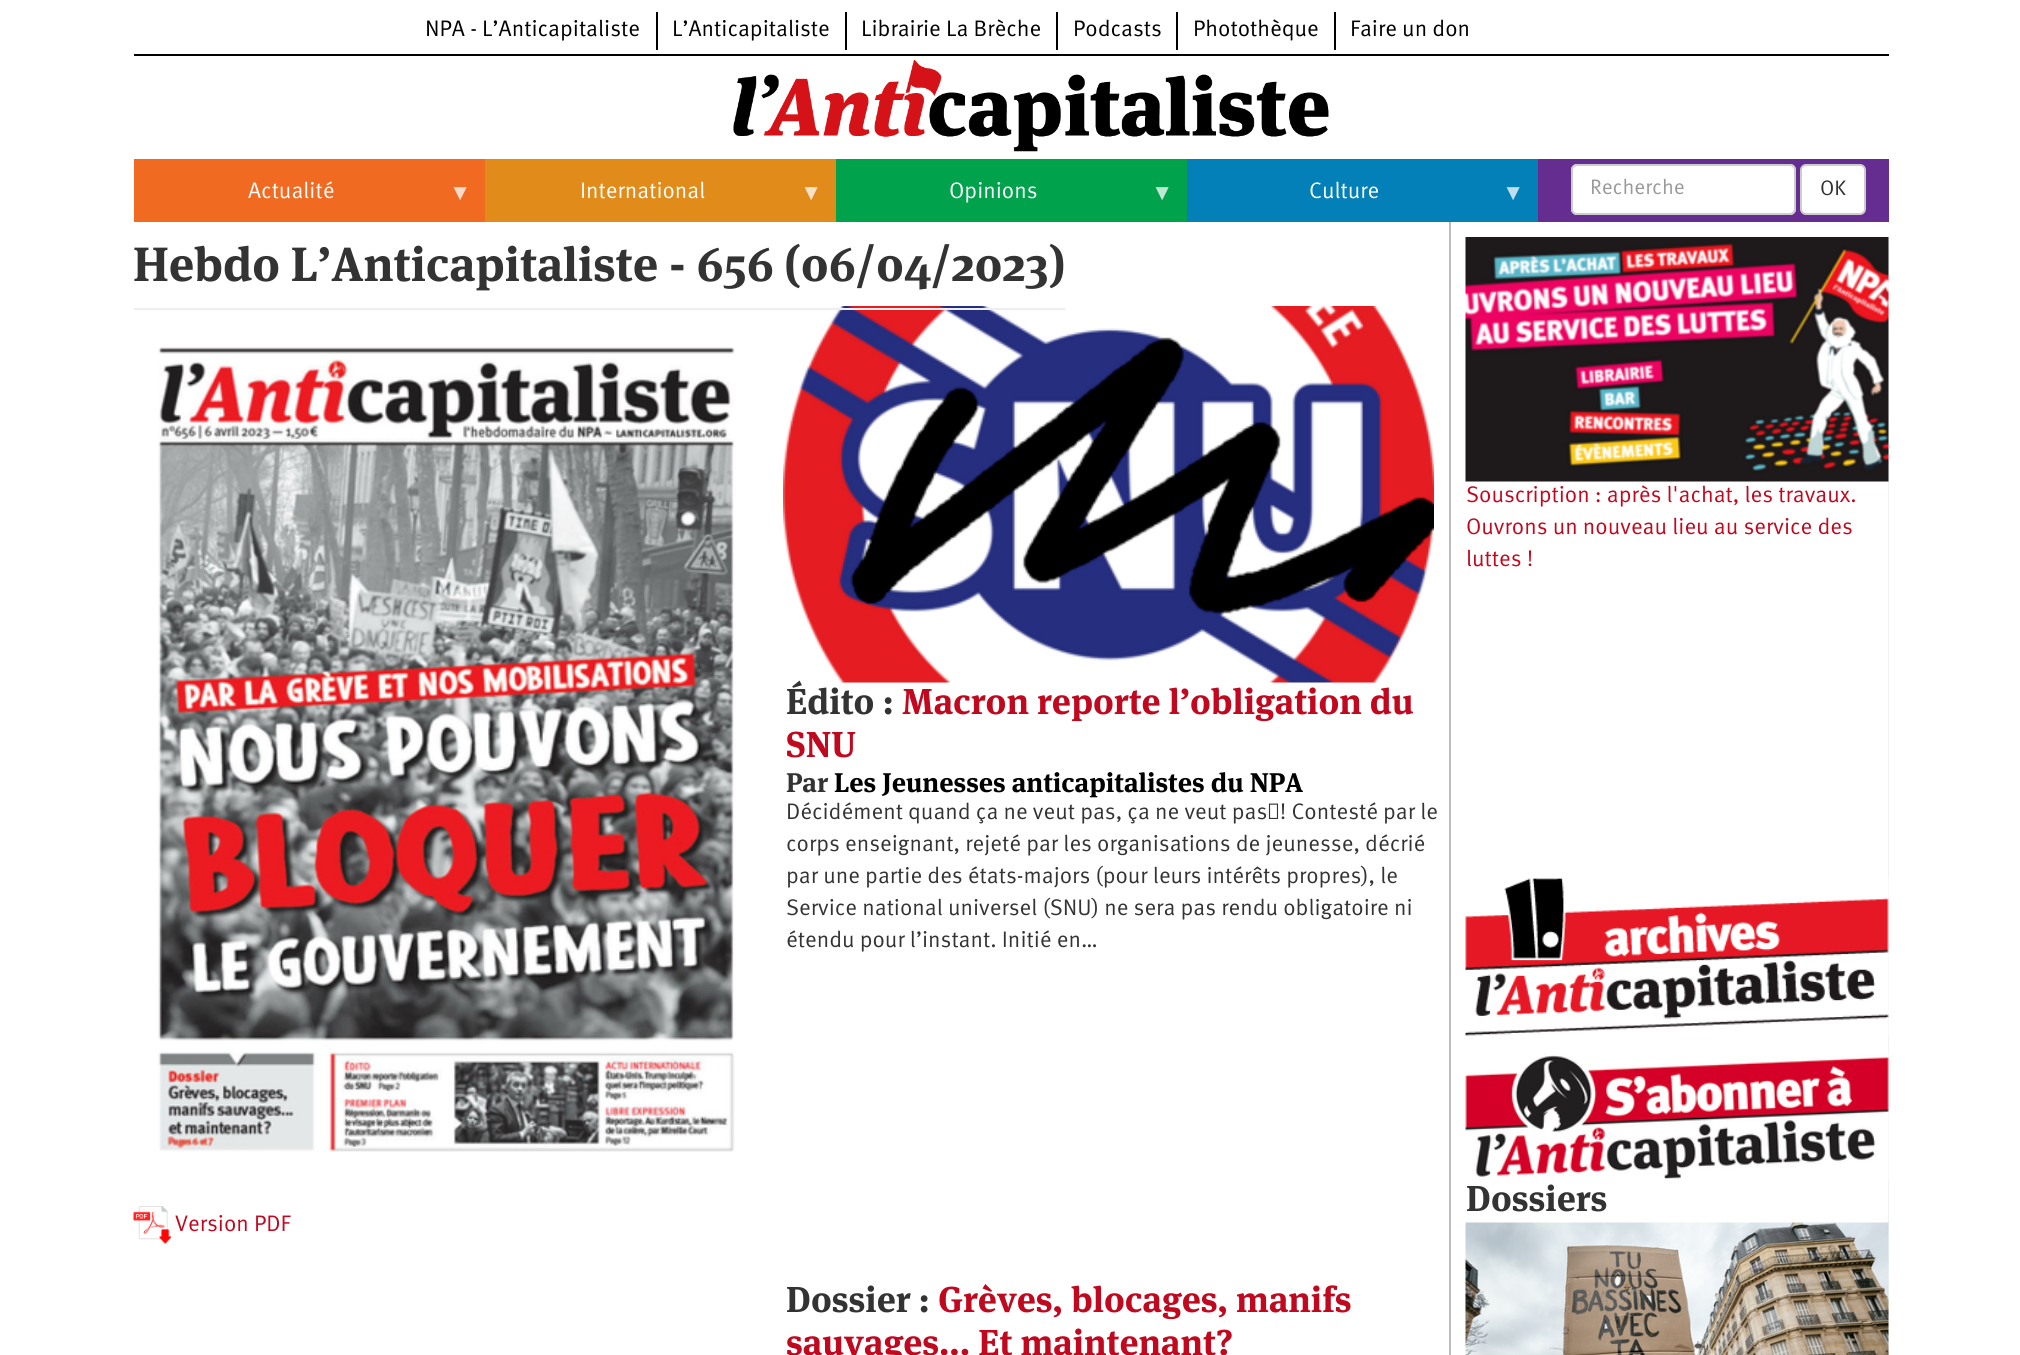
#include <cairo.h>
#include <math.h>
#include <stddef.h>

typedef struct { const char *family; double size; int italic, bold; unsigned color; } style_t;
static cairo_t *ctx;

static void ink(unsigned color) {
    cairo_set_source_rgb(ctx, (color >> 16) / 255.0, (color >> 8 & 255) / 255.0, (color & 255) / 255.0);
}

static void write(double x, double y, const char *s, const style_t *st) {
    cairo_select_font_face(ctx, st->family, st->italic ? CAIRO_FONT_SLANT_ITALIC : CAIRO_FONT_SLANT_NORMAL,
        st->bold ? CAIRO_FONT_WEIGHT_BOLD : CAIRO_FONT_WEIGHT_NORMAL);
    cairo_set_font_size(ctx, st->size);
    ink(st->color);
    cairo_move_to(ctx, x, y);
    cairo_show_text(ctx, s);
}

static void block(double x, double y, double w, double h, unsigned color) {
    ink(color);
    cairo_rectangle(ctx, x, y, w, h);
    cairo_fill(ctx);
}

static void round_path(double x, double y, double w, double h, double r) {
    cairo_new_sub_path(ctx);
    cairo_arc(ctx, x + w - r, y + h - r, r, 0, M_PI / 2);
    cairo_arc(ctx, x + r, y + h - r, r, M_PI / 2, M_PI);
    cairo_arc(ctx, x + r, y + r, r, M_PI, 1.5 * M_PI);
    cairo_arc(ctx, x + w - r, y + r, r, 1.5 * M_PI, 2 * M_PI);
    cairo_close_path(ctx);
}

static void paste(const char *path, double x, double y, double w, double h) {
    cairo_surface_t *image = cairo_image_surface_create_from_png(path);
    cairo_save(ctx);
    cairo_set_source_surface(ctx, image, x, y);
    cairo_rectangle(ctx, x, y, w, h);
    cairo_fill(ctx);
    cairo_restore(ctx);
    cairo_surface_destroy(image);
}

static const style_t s1 = {"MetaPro", 22.5, 0, 0, 0x000000};
static const style_t s2 = {"MetaPro", 22.5, 0, 0, 0xffffff};
static const style_t s3 = {"Liberation Serif", 22.5, 0, 0, 0xfcdac8};
static const style_t s4 = {"Liberation Serif", 22.5, 0, 0, 0xf7e2c6};
static const style_t s5 = {"Liberation Serif", 22.5, 0, 0, 0xbfe8d2};
static const style_t s6 = {"Liberation Serif", 22.5, 0, 0, 0xc0dfee};
static const style_t s7 = {"MetaPro", 21, 0, 0, 0x999999};
static const style_t s8 = {"MetaPro", 21, 0, 0, 0x333333};
static const style_t s9 = {"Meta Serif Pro", 48, 0, 1, 0x333333};
static const style_t s10 = {"Meta Serif Pro", 36, 0, 1, 0x333333};
static const style_t s11 = {"Meta Serif Pro", 36, 0, 1, 0xc0081f};
static const style_t s12 = {"Meta Serif Pro", 27, 0, 1, 0x333333};
static const style_t s13 = {"Meta Serif Pro", 27, 0, 1, 0x000000};
static const style_t s14 = {"MetaPro", 22.5, 0, 0, 0x333333};
static const style_t s15 = {"MetaPro", 22.5, 0, 0, 0xc0081f};

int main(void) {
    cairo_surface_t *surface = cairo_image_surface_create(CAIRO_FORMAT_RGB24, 2020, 1355);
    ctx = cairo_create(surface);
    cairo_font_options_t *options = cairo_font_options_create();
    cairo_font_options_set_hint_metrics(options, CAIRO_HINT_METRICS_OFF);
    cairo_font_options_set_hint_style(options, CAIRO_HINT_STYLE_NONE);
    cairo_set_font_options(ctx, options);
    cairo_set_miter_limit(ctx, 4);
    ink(0xffffff);
    cairo_paint(ctx);
    block(134, 54, 1755, 2, 0x000000);
    write(425, 36, "NPA - L’Anticapitaliste", &s1);
    block(656, 12, 2, 38, 0x000000);
    write(672, 36, "L’Anticapitaliste", &s1);
    block(845, 12, 2, 38, 0x000000);
    write(861, 36, "Librairie La Brèche", &s1);
    block(1056, 12, 2, 38, 0x000000);
    write(1073, 36, "Podcasts", &s1);
    block(1176, 12, 2, 38, 0x000000);
    write(1193, 36, "Photothèque", &s1);
    block(1334, 12, 2, 38, 0x000000);
    write(1350, 36, "Faire un don", &s1);
    paste("pic1.png", 733, 60, 596, 92);
    block(134, 159, 351, 63, 0xf16a22);
    write(248, 198, "Actualité", &s2);
    write(449, 200, "▼", &s3);
    block(485, 159, 351, 63, 0xe08b1a);
    write(580, 198, "International", &s2);
    write(800, 200, "▼", &s4);
    block(836, 159, 351, 63, 0x00a24c);
    write(949, 198, "Opinions", &s2);
    write(1151, 200, "▼", &s5);
    block(1187, 159, 351, 63, 0x0480b9);
    write(1309, 198, "Culture", &s2);
    write(1502, 200, "▼", &s6);
    block(1538, 159, 351, 63, 0x652d90);
    ink(0xffffff);
    round_path(1571, 164, 225, 51, 6);
    cairo_fill(ctx);
    ink(0xececec);
    cairo_new_path(ctx);
    cairo_move_to(ctx, 1576, 166);
    cairo_line_to(ctx, 1790, 166);
    cairo_curve_to(ctx, 1792, 166, 1794, 169, 1794, 171);
    cairo_line_to(ctx, 1794, 170);
    cairo_curve_to(ctx, 1794, 167, 1792, 165, 1789, 165);
    cairo_line_to(ctx, 1577, 165);
    cairo_curve_to(ctx, 1574, 165, 1572, 167, 1572, 170);
    cairo_line_to(ctx, 1572, 171);
    cairo_curve_to(ctx, 1572, 169, 1574, 166, 1576, 166);
    cairo_close_path(ctx);
    cairo_fill(ctx);
    round_path(1572, 165, 223, 49, 5);
    ink(0xcccccc);
    cairo_stroke(ctx);
    write(1590, 194, "Recherche", &s7);
    ink(0xffffff);
    round_path(1801, 165, 64, 49, 5);
    cairo_fill_preserve(ctx);
    ink(0xcccccc);
    cairo_stroke(ctx);
    write(1820, 195, "OK", &s8);
    write(133, 281, "Hebdo L’Anticapitaliste - 656 (06/04/2023)", &s9);
    paste("pic2.png", 783, 306, 651, 377);
    block(134, 308, 931, 2, 0xeeeeee);
    write(786, 714, "Édito :", &s10);
    write(902, 714, "Macron reporte l’obligation du", &s11);
    write(786, 757, "SNU", &s11);
    write(786, 792, "Par", &s12);
    write(834, 792, "Les Jeunesses anticapitalistes du NPA", &s13);
    write(786, 819, "Décidément quand ça ne veut pas, ça ne veut pas ! Contesté par le", &s14);
    write(786, 851, "corps enseignant, rejeté par les organisations de jeunesse, décrié", &s14);
    write(786, 883, "par une partie des états-majors (pour leurs intérêts propres), le", &s14);
    write(786, 915, "Service national universel (SNU) ne sera pas rendu obligatoire ni", &s14);
    write(786, 947, "étendu pour l’instant. Initié en…", &s14);
    paste("pic3.png", 158, 347, 577, 805);
    paste("pic4.png", 133, 1206, 38, 38);
    write(175, 1231, "Version PDF", &s15);
    write(786, 1312, "Dossier :", &s10);
    write(938, 1312, "Grèves, blocages, manifs", &s11);
    write(786, 1355, "sauvages... Et maintenant?", &s11);
    block(1449, 222, 2, 1133, 0xbcbcbc);
    ink(0xf2f2f2);
    cairo_new_path(ctx);
    cairo_move_to(ctx, 1472, 238);
    cairo_line_to(ctx, 1882, 238);
    cairo_curve_to(ctx, 1886, 238, 1888, 241, 1888, 244);
    cairo_line_to(ctx, 1888, 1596);
    cairo_curve_to(ctx, 1888, 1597, 1888, 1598, 1887, 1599);
    cairo_curve_to(ctx, 1888, 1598, 1889, 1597, 1889, 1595);
    cairo_line_to(ctx, 1889, 243);
    cairo_curve_to(ctx, 1889, 240, 1886, 237, 1883, 237);
    cairo_line_to(ctx, 1472, 237);
    cairo_curve_to(ctx, 1469, 237, 1466, 240, 1466, 243);
    cairo_line_to(ctx, 1466, 244);
    cairo_curve_to(ctx, 1466, 241, 1468, 238, 1472, 238);
    cairo_close_path(ctx);
    cairo_fill(ctx);
    paste("pic5.png", 1465, 237, 424, 245);
    write(1466, 502, "Souscription : après l'achat, les travaux.", &s15);
    write(1466, 534, "Ouvrons un nouveau lieu au service des", &s15);
    write(1466, 566, "luttes !", &s15);
    paste("pic6.png", 1465, 878, 424, 158);
    paste("pic7.png", 1465, 1052, 424, 128);
    write(1466, 1211, "Dossiers", &s10);
    paste("pic8.png", 1465, 1222, 424, 133);
    cairo_surface_write_to_png(surface, "screenshot.png");
    cairo_font_options_destroy(options);
    cairo_destroy(ctx);
    cairo_surface_destroy(surface);
    return 0;
}
